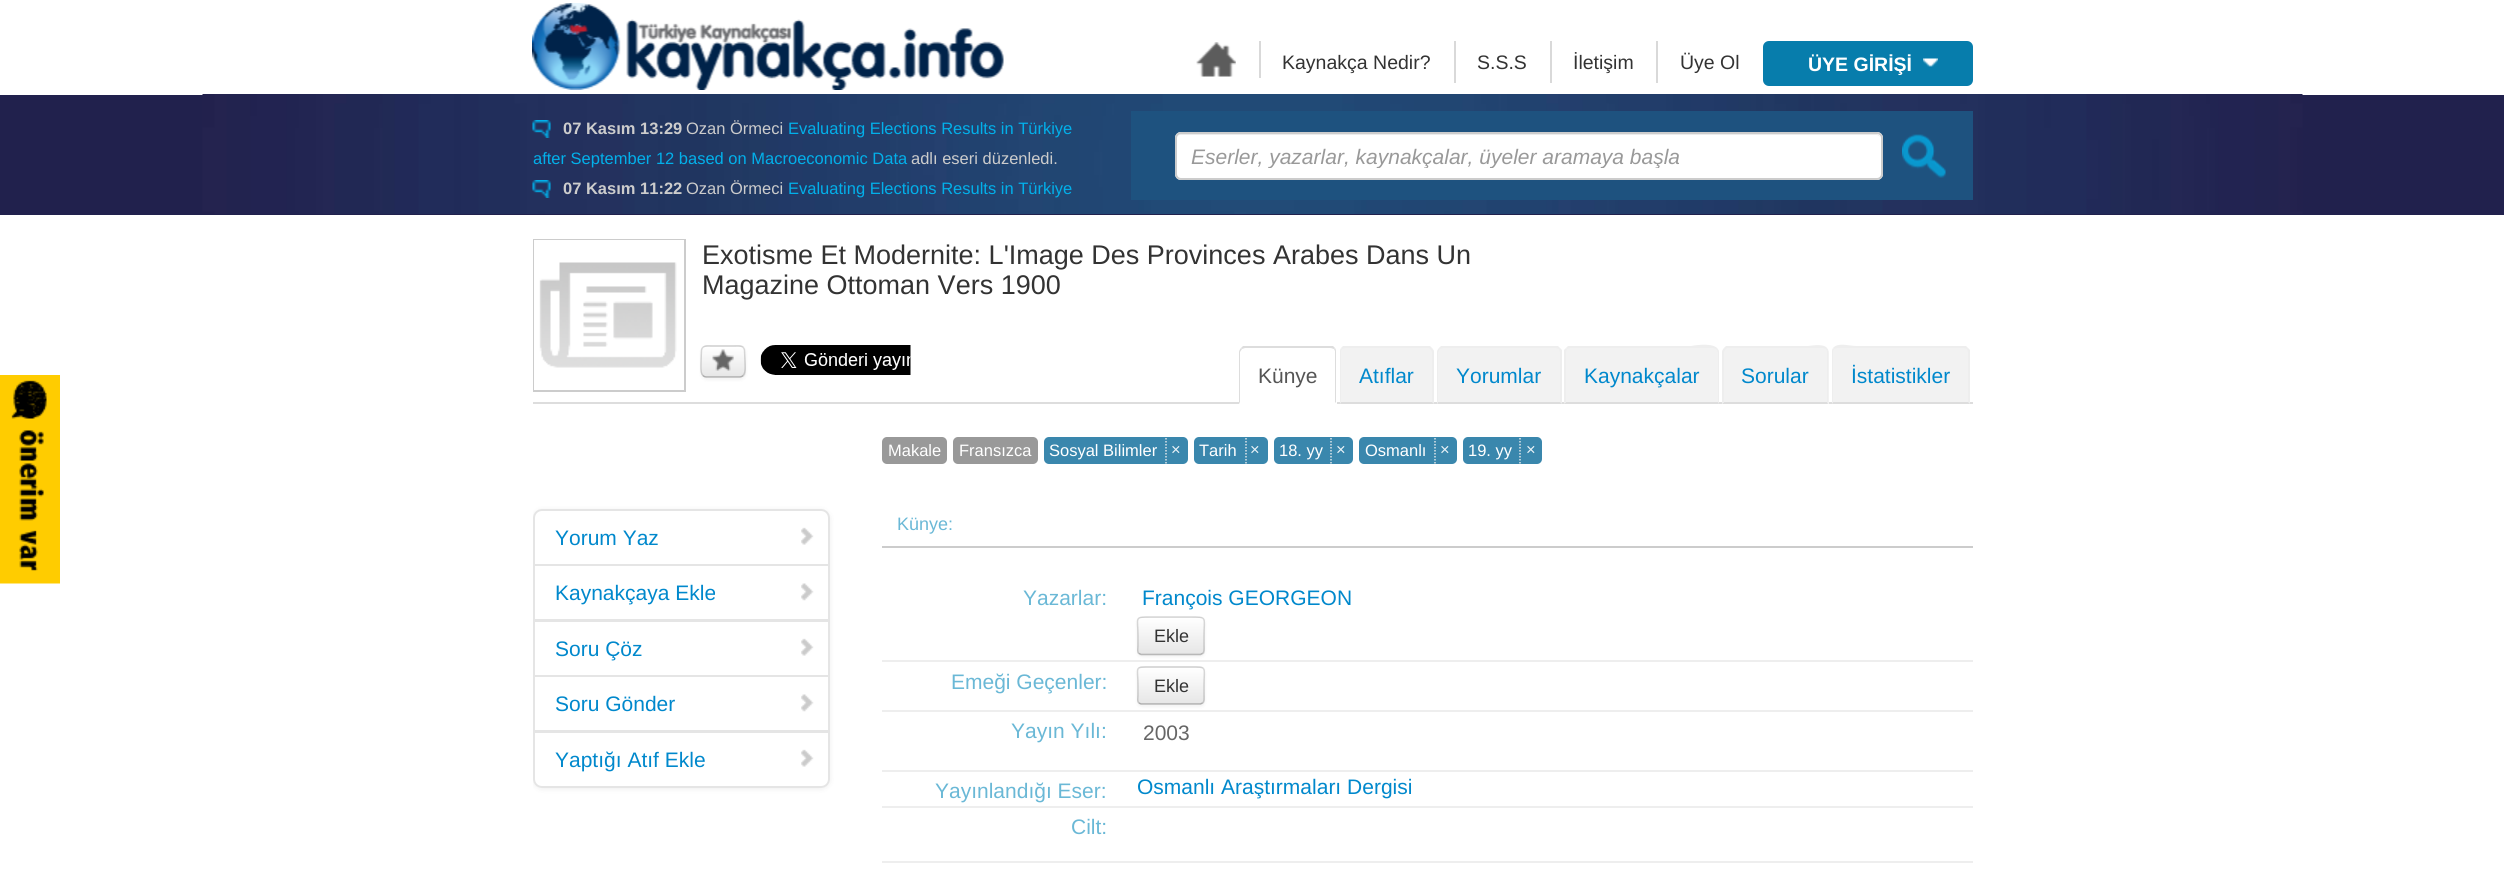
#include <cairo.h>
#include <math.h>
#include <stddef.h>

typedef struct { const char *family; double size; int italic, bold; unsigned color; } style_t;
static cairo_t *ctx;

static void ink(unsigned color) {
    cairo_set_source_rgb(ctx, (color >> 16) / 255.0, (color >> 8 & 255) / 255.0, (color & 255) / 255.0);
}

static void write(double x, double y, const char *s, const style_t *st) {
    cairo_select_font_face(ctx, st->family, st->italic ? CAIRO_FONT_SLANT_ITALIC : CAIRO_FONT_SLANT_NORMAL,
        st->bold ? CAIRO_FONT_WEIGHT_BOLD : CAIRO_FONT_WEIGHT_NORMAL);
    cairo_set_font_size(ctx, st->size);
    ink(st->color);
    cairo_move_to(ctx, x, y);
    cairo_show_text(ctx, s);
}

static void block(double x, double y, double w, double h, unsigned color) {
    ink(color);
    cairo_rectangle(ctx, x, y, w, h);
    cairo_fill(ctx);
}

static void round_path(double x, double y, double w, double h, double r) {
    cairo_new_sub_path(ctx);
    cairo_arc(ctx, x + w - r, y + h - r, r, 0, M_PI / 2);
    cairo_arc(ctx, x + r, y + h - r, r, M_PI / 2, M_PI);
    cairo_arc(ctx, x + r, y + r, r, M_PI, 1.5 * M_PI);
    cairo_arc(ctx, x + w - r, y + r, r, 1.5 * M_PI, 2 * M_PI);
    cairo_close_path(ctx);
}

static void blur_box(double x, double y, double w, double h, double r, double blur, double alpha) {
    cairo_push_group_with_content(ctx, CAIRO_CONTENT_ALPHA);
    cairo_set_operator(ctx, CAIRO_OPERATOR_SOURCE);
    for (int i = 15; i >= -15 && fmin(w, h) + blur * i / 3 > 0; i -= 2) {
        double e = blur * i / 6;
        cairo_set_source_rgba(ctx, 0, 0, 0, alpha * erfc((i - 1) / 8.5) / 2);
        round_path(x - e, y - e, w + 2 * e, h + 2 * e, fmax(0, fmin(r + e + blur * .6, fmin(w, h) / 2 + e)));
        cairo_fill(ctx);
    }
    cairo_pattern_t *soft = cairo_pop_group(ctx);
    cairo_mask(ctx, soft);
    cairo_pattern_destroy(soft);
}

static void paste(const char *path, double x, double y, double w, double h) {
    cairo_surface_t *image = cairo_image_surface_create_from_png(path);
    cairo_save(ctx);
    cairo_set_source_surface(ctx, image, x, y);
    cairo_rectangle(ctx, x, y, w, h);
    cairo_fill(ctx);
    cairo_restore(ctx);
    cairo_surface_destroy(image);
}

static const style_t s1 = {"Liberation Sans", 19.5, 0, 0, 0x333333};
static const style_t s2 = {"Liberation Sans", 19.5, 0, 1, 0xffffff};
static const style_t s3 = {"Liberation Sans", 16.5, 0, 1, 0xcccccc};
static const style_t s4 = {"Liberation Sans", 16.5, 0, 0, 0xcccccc};
static const style_t s5 = {"Liberation Sans", 16.5, 0, 0, 0x02b0ea};
static const style_t s6 = {"Liberation Sans", 21, 1, 0, 0x999999};
static const style_t s7 = {"Liberation Sans", 27, 0, 0, 0x333333};
static const style_t s8 = {"Liberation Sans", 21, 0, 0, 0x0088cc};
static const style_t s9 = {"Liberation Sans", 21, 0, 0, 0x555555};
static const style_t s10 = {"Liberation Sans", 16.5, 0, 0, 0xffffff};
static const style_t s11 = {"Liberation Sans", 16.5, 0, 0, 0xebf3f7};
static const style_t s12 = {"Liberation Sans", 18, 0, 0, 0x6ab8d6};
static const style_t s13 = {"Liberation Sans", 21, 0, 0, 0x6ab8d6};
static const style_t s14 = {"Liberation Sans", 18, 0, 0, 0x333333};
static const style_t s15 = {"Liberation Sans", 21, 0, 0, 0x666666};

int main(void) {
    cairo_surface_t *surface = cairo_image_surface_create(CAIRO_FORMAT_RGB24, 2504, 886);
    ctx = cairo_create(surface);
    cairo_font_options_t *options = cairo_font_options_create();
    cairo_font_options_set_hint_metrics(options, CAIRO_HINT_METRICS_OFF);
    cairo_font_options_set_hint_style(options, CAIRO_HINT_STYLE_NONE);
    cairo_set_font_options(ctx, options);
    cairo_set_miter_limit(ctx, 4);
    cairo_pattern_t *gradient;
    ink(0xffffff);
    cairo_paint(ctx);
    paste("pic1.png", 532, 3, 472, 87);
    block(1259, 41, 2, 37, 0xd9d9d9);
    paste("pic2.png", 1196, 42, 40, 35);
    block(1454, 41, 2, 42, 0xd9d9d9);
    write(1282, 69, "Kaynakça Nedir?", &s1);
    block(1550, 41, 2, 42, 0xd9d9d9);
    write(1477, 69, "S.S.S", &s1);
    block(1656, 41, 2, 42, 0xd9d9d9);
    write(1573, 69, "İletişim", &s1);
    write(1680, 69, "Üye Ol", &s1);
    ink(0x077dac);
    round_path(1763, 41, 210, 45, 6);
    cairo_fill(ctx);
    write(1808, 71, "ÜYE GİRİŞİ", &s2);
    paste("pic3.png", 1923, 58, 15, 9);
    block(0, 95, 2504, 120, 0x21214d);
    paste("pic4.png", 202, 94, 2101, 120);
    paste("pic5.png", 532, 120, 19, 18);
    write(563, 134, "07 Kasım 13:29", &s3);
    write(686, 134, "Ozan Örmeci", &s4);
    write(788, 134, "Evaluating Elections Results in Türkiye", &s5);
    write(533, 164, "after September 12 based on Macroeconomic Data", &s5);
    write(911, 164, "adlı eseri düzenledi.", &s4);
    paste("pic6.png", 532, 180, 19, 18);
    write(563, 194, "07 Kasım 11:22", &s3);
    write(686, 194, "Ozan Örmeci", &s4);
    write(788, 194, "Evaluating Elections Results in Türkiye", &s5);
    block(1131, 111, 842, 89, 0x1e527f);
    ink(0xffffff);
    round_path(1175, 132, 708, 48, 6);
    cairo_fill(ctx);
    ink(0xececec);
    cairo_new_path(ctx);
    cairo_move_to(ctx, 1180, 135);
    cairo_line_to(ctx, 1876, 135);
    cairo_curve_to(ctx, 1879, 135, 1881, 137, 1881, 140);
    cairo_curve_to(ctx, 1881, 137, 1879, 134, 1876, 134);
    cairo_line_to(ctx, 1181, 134);
    cairo_curve_to(ctx, 1178, 134, 1176, 137, 1176, 140);
    cairo_curve_to(ctx, 1176, 137, 1178, 135, 1180, 135);
    cairo_close_path(ctx);
    cairo_fill(ctx);
    round_path(1176, 133, 706, 46, 5);
    ink(0xcccccc);
    cairo_stroke(ctx);
    cairo_save(ctx);
    cairo_rectangle(ctx, 1191, 144, 690, 24);
    cairo_clip(ctx);
    write(1191, 164, "Eserler, yazarlar, kaynakçalar, üyeler aramaya başla", &s6);
    cairo_restore(ctx);
    paste("pic7.png", 1902, 134, 44, 44);
    paste("pic8.png", 0, 375, 60, 209);
    cairo_rectangle(ctx, 534, 240, 151, 151);
    cairo_stroke(ctx);
    paste("pic9.png", 534, 240, 150, 150);
    write(702, 264, "Exotisme Et Modernite: L'Image Des Provinces Arabes Dans Un", &s7);
    write(702, 294, "Magazine Ottoman Vers 1900", &s7);
    ink(0x000000);
    blur_box(701, 347, 45, 33, 6, 1.5, 0.05);
    ink(0xf5f5f5);
    round_path(701, 345, 45, 33, 6);
    cairo_fill(ctx);
    cairo_save(ctx);
    round_path(701, 345, 45, 33, 6);
    cairo_clip(ctx);
    gradient = cairo_pattern_create_linear(723, 347, 723, 377);
    cairo_pattern_add_color_stop_rgba(gradient, 0, 1, 1, 1, 1);
    cairo_pattern_add_color_stop_rgba(gradient, 1, 0.902, 0.902, 0.902, 1);
    cairo_set_source(ctx, gradient);
    cairo_pattern_destroy(gradient);
    cairo_rectangle(ctx, 701, 347, 45, 30);
    cairo_fill(ctx);
    cairo_restore(ctx);
    cairo_new_path(ctx);
    cairo_move_to(ctx, 743, 375.5);
    cairo_curve_to(ctx, 742, 376.5, 741, 377, 739.5, 377);
    cairo_line_to(ctx, 706.5, 377);
    cairo_curve_to(ctx, 705, 377, 704, 376.5, 703, 375.5);
    cairo_set_source_rgba(ctx, 0, 0, 0, 0.25);
    cairo_set_line_width(ctx, 1.5);
    cairo_stroke(ctx);
    cairo_new_path(ctx);
    cairo_move_to(ctx, 703, 375.5);
    cairo_curve_to(ctx, 700, 373, 701, 365, 701, 361.5);
    cairo_line_to(ctx, 701.5, 350);
    cairo_curve_to(ctx, 702.5, 345, 708, 346, 712, 346);
    cairo_line_to(ctx, 734, 346);
    cairo_curve_to(ctx, 738, 346, 743.5, 345, 744.5, 350);
    cairo_line_to(ctx, 745, 361.5);
    cairo_curve_to(ctx, 745, 365, 746, 373, 743, 375.5);
    cairo_set_source_rgba(ctx, 0, 0, 0, 0.15);
    cairo_stroke(ctx);
    paste("pic10.png", 712, 349, 22, 22);
    paste("pic11.png", 760, 345, 151, 30);
    cairo_save(ctx);
    cairo_rectangle(ctx, 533, 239, 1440, 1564);
    cairo_clip(ctx);
    ink(0x000000);
    blur_box(533, 510, 297, 279, 9, 3, 0.07);
    cairo_restore(ctx);
    ink(0xffffff);
    round_path(533, 509, 297, 279, 9);
    cairo_fill(ctx);
    cairo_new_path(ctx);
    cairo_move_to(ctx, 542, 510);
    cairo_line_to(ctx, 821, 510);
    cairo_curve_to(ctx, 825.5, 510, 829, 513.5, 829, 518);
    cairo_line_to(ctx, 829, 565);
    cairo_line_to(ctx, 534, 565);
    cairo_line_to(ctx, 534, 518);
    cairo_curve_to(ctx, 534, 513.5, 537.5, 510, 542, 510);
    cairo_close_path(ctx);
    ink(0xe5e5e5);
    cairo_set_line_width(ctx, 2);
    cairo_stroke(ctx);
    write(555, 545, "Yorum Yaz", &s8);
    paste("pic12.png", 801, 527, 13, 18);
    cairo_rectangle(ctx, 534, 565, 295, 55);
    ink(0xe5e5e5);
    cairo_stroke(ctx);
    write(555, 600, "Kaynakçaya Ekle", &s8);
    paste("pic13.png", 801, 583, 13, 18);
    cairo_rectangle(ctx, 534, 621, 295, 55);
    ink(0xe5e5e5);
    cairo_stroke(ctx);
    write(555, 656, "Soru Çöz", &s8);
    paste("pic12.png", 801, 638, 13, 18);
    cairo_rectangle(ctx, 534, 676, 295, 55);
    ink(0xe5e5e5);
    cairo_stroke(ctx);
    write(555, 711, "Soru Gönder", &s8);
    paste("pic13.png", 801, 694, 13, 18);
    cairo_new_path(ctx);
    cairo_move_to(ctx, 534, 732);
    cairo_line_to(ctx, 829, 732);
    cairo_line_to(ctx, 829, 779);
    cairo_curve_to(ctx, 829, 783.5, 825.5, 787, 821, 787);
    cairo_line_to(ctx, 542, 787);
    cairo_curve_to(ctx, 537.5, 787, 534, 783.5, 534, 779);
    cairo_close_path(ctx);
    ink(0xe5e5e5);
    cairo_stroke(ctx);
    write(555, 767, "Yaptığı Atıf Ekle", &s8);
    paste("pic12.png", 801, 749, 13, 18);
    block(533, 402, 1440, 2, 0xdddddd);
    ink(0xffffff);
    cairo_new_path(ctx);
    cairo_move_to(ctx, 1245, 347);
    cairo_line_to(ctx, 1331, 347);
    cairo_curve_to(ctx, 1334.5, 347, 1337, 349.5, 1337, 353);
    cairo_line_to(ctx, 1337, 404);
    cairo_line_to(ctx, 1239, 404);
    cairo_line_to(ctx, 1239, 353);
    cairo_curve_to(ctx, 1239, 349.5, 1241.5, 347, 1245, 347);
    cairo_close_path(ctx);
    cairo_fill(ctx);
    ink(0xdddddd);
    cairo_new_path(ctx);
    cairo_move_to(ctx, 1245, 348);
    cairo_line_to(ctx, 1242, 349);
    cairo_line_to(ctx, 1241, 348);
    cairo_line_to(ctx, 1243, 346);
    cairo_line_to(ctx, 1333, 346);
    cairo_line_to(ctx, 1335, 348);
    cairo_line_to(ctx, 1334, 349);
    cairo_curve_to(ctx, 1333, 349, 1332, 348, 1330, 348);
    cairo_close_path(ctx);
    cairo_fill(ctx);
    cairo_new_path(ctx);
    cairo_move_to(ctx, 1335, 348);
    cairo_curve_to(ctx, 1336, 349, 1336, 351, 1336, 352);
    cairo_line_to(ctx, 1336, 403);
    cairo_line_to(ctx, 1335, 402);
    cairo_line_to(ctx, 1335, 351);
    cairo_line_to(ctx, 1334, 349);
    cairo_close_path(ctx);
    cairo_fill(ctx);
    cairo_new_path(ctx);
    cairo_move_to(ctx, 1239, 404);
    cairo_line_to(ctx, 1240, 402);
    cairo_line_to(ctx, 1240, 352);
    cairo_line_to(ctx, 1242, 349);
    cairo_line_to(ctx, 1241, 348);
    cairo_curve_to(ctx, 1240, 349, 1239, 351, 1239, 352);
    cairo_close_path(ctx);
    cairo_fill(ctx);
    write(1258, 383, "Künye", &s9);
    ink(0xf2f2f2);
    cairo_new_path(ctx);
    cairo_move_to(ctx, 1346, 347);
    cairo_line_to(ctx, 1428, 347);
    cairo_curve_to(ctx, 1431.5, 347, 1434, 349.5, 1434, 353);
    cairo_line_to(ctx, 1434, 404);
    cairo_line_to(ctx, 1340, 404);
    cairo_line_to(ctx, 1340, 353);
    cairo_curve_to(ctx, 1340, 349.5, 1342.5, 347, 1346, 347);
    cairo_close_path(ctx);
    cairo_fill(ctx);
    ink(0xeeeeee);
    cairo_new_path(ctx);
    cairo_move_to(ctx, 1346, 348);
    cairo_curve_to(ctx, 1344, 348, 1343, 349, 1342, 349);
    cairo_line_to(ctx, 1341, 348);
    cairo_line_to(ctx, 1343, 346);
    cairo_line_to(ctx, 1430, 346);
    cairo_line_to(ctx, 1432, 348);
    cairo_line_to(ctx, 1431, 350);
    cairo_curve_to(ctx, 1430, 349, 1429, 348, 1428, 348);
    cairo_close_path(ctx);
    cairo_fill(ctx);
    cairo_new_path(ctx);
    cairo_move_to(ctx, 1434, 404);
    cairo_line_to(ctx, 1434, 352);
    cairo_curve_to(ctx, 1434, 351, 1433, 349, 1432, 348);
    cairo_line_to(ctx, 1431, 350);
    cairo_line_to(ctx, 1432, 352);
    cairo_line_to(ctx, 1432, 402);
    cairo_close_path(ctx);
    cairo_fill(ctx);
    ink(0xdddddd);
    cairo_new_path(ctx);
    cairo_move_to(ctx, 1434, 404);
    cairo_line_to(ctx, 1340, 404);
    cairo_line_to(ctx, 1341, 402);
    cairo_line_to(ctx, 1432, 402);
    cairo_close_path(ctx);
    cairo_fill(ctx);
    ink(0xeeeeee);
    cairo_new_path(ctx);
    cairo_move_to(ctx, 1340, 403);
    cairo_line_to(ctx, 1340, 352);
    cairo_curve_to(ctx, 1340, 351, 1340, 349, 1341, 348);
    cairo_line_to(ctx, 1342, 349);
    cairo_line_to(ctx, 1341, 351);
    cairo_line_to(ctx, 1341, 402);
    cairo_close_path(ctx);
    cairo_fill(ctx);
    write(1359, 383, "Atıflar", &s8);
    ink(0xf2f2f2);
    cairo_new_path(ctx);
    cairo_move_to(ctx, 1443, 347);
    cairo_line_to(ctx, 1556, 347);
    cairo_curve_to(ctx, 1559.5, 347, 1562, 349.5, 1562, 353);
    cairo_line_to(ctx, 1562, 404);
    cairo_line_to(ctx, 1437, 404);
    cairo_line_to(ctx, 1437, 353);
    cairo_curve_to(ctx, 1437, 349.5, 1439.5, 347, 1443, 347);
    cairo_close_path(ctx);
    cairo_fill(ctx);
    ink(0xeeeeee);
    cairo_new_path(ctx);
    cairo_move_to(ctx, 1443, 348);
    cairo_line_to(ctx, 1440, 349);
    cairo_line_to(ctx, 1439, 348);
    cairo_line_to(ctx, 1441, 346);
    cairo_line_to(ctx, 1558, 346);
    cairo_line_to(ctx, 1560, 348);
    cairo_line_to(ctx, 1559, 349);
    cairo_line_to(ctx, 1556, 348);
    cairo_close_path(ctx);
    cairo_fill(ctx);
    cairo_new_path(ctx);
    cairo_move_to(ctx, 1560, 348);
    cairo_line_to(ctx, 1562, 350);
    cairo_line_to(ctx, 1562, 404);
    cairo_line_to(ctx, 1560, 402);
    cairo_line_to(ctx, 1560, 352);
    cairo_line_to(ctx, 1559, 349);
    cairo_close_path(ctx);
    cairo_fill(ctx);
    ink(0xdddddd);
    cairo_new_path(ctx);
    cairo_move_to(ctx, 1562, 404);
    cairo_line_to(ctx, 1560, 402);
    cairo_line_to(ctx, 1438, 402);
    cairo_line_to(ctx, 1437, 404);
    cairo_close_path(ctx);
    cairo_fill(ctx);
    ink(0xeeeeee);
    cairo_new_path(ctx);
    cairo_move_to(ctx, 1437, 404);
    cairo_line_to(ctx, 1438, 402);
    cairo_line_to(ctx, 1438, 352);
    cairo_line_to(ctx, 1440, 349);
    cairo_line_to(ctx, 1439, 348);
    cairo_curve_to(ctx, 1438, 349, 1437, 351, 1437, 352);
    cairo_close_path(ctx);
    cairo_fill(ctx);
    write(1456, 383, "Yorumlar", &s8);
    ink(0xf2f2f2);
    cairo_new_path(ctx);
    cairo_move_to(ctx, 1571, 347);
    cairo_line_to(ctx, 1713, 347);
    cairo_curve_to(ctx, 1716.5, 347, 1719, 349.5, 1719, 353);
    cairo_line_to(ctx, 1719, 404);
    cairo_line_to(ctx, 1565, 404);
    cairo_line_to(ctx, 1565, 353);
    cairo_curve_to(ctx, 1565, 349.5, 1567.5, 347, 1571, 347);
    cairo_close_path(ctx);
    cairo_fill(ctx);
    ink(0xeeeeee);
    cairo_new_path(ctx);
    cairo_move_to(ctx, 1570, 348);
    cairo_line_to(ctx, 1567, 349);
    cairo_line_to(ctx, 1566, 348);
    cairo_line_to(ctx, 1568, 346);
    cairo_line_to(ctx, 1691, 346);
    cairo_curve_to(ctx, 1691, 346, 1711, 342, 1717, 348);
    cairo_line_to(ctx, 1716, 349);
    cairo_line_to(ctx, 1713, 348);
    cairo_close_path(ctx);
    cairo_fill(ctx);
    cairo_new_path(ctx);
    cairo_move_to(ctx, 1719, 404);
    cairo_line_to(ctx, 1719, 352);
    cairo_curve_to(ctx, 1719, 351, 1718, 349, 1717, 348);
    cairo_line_to(ctx, 1716, 349);
    cairo_line_to(ctx, 1718, 352);
    cairo_line_to(ctx, 1718, 402);
    cairo_close_path(ctx);
    cairo_fill(ctx);
    ink(0xdddddd);
    cairo_new_path(ctx);
    cairo_move_to(ctx, 1719, 404);
    cairo_line_to(ctx, 1718, 402);
    cairo_line_to(ctx, 1566, 402);
    cairo_line_to(ctx, 1564, 404);
    cairo_close_path(ctx);
    cairo_fill(ctx);
    ink(0xeeeeee);
    cairo_new_path(ctx);
    cairo_move_to(ctx, 1564, 404);
    cairo_line_to(ctx, 1564, 350);
    cairo_line_to(ctx, 1566, 348);
    cairo_line_to(ctx, 1567, 349);
    cairo_line_to(ctx, 1566, 352);
    cairo_line_to(ctx, 1566, 402);
    cairo_close_path(ctx);
    cairo_fill(ctx);
    write(1584, 383, "Kaynakçalar", &s8);
    ink(0xf2f2f2);
    cairo_new_path(ctx);
    cairo_move_to(ctx, 1728, 347);
    cairo_line_to(ctx, 1823, 347);
    cairo_curve_to(ctx, 1826.5, 347, 1829, 349.5, 1829, 353);
    cairo_line_to(ctx, 1829, 404);
    cairo_line_to(ctx, 1722, 404);
    cairo_line_to(ctx, 1722, 353);
    cairo_curve_to(ctx, 1722, 349.5, 1724.5, 347, 1728, 347);
    cairo_close_path(ctx);
    cairo_fill(ctx);
    ink(0xeeeeee);
    cairo_new_path(ctx);
    cairo_move_to(ctx, 1728, 348);
    cairo_curve_to(ctx, 1727, 348, 1726, 349, 1725, 350);
    cairo_line_to(ctx, 1724, 348);
    cairo_line_to(ctx, 1726, 346);
    cairo_line_to(ctx, 1808, 346);
    cairo_curve_to(ctx, 1810, 346, 1823, 343, 1827, 348);
    cairo_line_to(ctx, 1826, 349);
    cairo_curve_to(ctx, 1825, 349, 1824, 348, 1822, 348);
    cairo_close_path(ctx);
    cairo_fill(ctx);
    cairo_new_path(ctx);
    cairo_move_to(ctx, 1827, 348);
    cairo_curve_to(ctx, 1828, 349, 1828, 351, 1828, 352);
    cairo_line_to(ctx, 1828, 403);
    cairo_line_to(ctx, 1827, 402);
    cairo_line_to(ctx, 1827, 351);
    cairo_line_to(ctx, 1826, 349);
    cairo_close_path(ctx);
    cairo_fill(ctx);
    ink(0xdddddd);
    cairo_new_path(ctx);
    cairo_move_to(ctx, 1828, 404);
    cairo_line_to(ctx, 1722, 404);
    cairo_line_to(ctx, 1724, 402);
    cairo_line_to(ctx, 1827, 402);
    cairo_close_path(ctx);
    cairo_fill(ctx);
    ink(0xeeeeee);
    cairo_new_path(ctx);
    cairo_move_to(ctx, 1722, 404);
    cairo_line_to(ctx, 1724, 402);
    cairo_line_to(ctx, 1724, 352);
    cairo_line_to(ctx, 1725, 350);
    cairo_line_to(ctx, 1724, 348);
    cairo_curve_to(ctx, 1723, 349, 1722, 351, 1722, 352);
    cairo_close_path(ctx);
    cairo_fill(ctx);
    write(1741, 383, "Sorular", &s8);
    ink(0xf2f2f2);
    cairo_new_path(ctx);
    cairo_move_to(ctx, 1838, 347);
    cairo_line_to(ctx, 1964, 347);
    cairo_curve_to(ctx, 1967.5, 347, 1970, 349.5, 1970, 353);
    cairo_line_to(ctx, 1970, 404);
    cairo_line_to(ctx, 1832, 404);
    cairo_line_to(ctx, 1832, 353);
    cairo_curve_to(ctx, 1832, 349.5, 1834.5, 347, 1838, 347);
    cairo_close_path(ctx);
    cairo_fill(ctx);
    ink(0xeeeeee);
    cairo_new_path(ctx);
    cairo_move_to(ctx, 1838, 348);
    cairo_curve_to(ctx, 1836, 348, 1835, 349, 1834, 349);
    cairo_line_to(ctx, 1833, 348);
    cairo_curve_to(ctx, 1838, 342, 1849, 346, 1857, 346);
    cairo_line_to(ctx, 1966, 346);
    cairo_line_to(ctx, 1968, 348);
    cairo_line_to(ctx, 1967, 349);
    cairo_line_to(ctx, 1964, 348);
    cairo_close_path(ctx);
    cairo_fill(ctx);
    cairo_new_path(ctx);
    cairo_move_to(ctx, 1968, 348);
    cairo_line_to(ctx, 1970, 350);
    cairo_line_to(ctx, 1970, 404);
    cairo_line_to(ctx, 1968, 402);
    cairo_line_to(ctx, 1968, 352);
    cairo_line_to(ctx, 1967, 349);
    cairo_close_path(ctx);
    cairo_fill(ctx);
    ink(0xdddddd);
    cairo_new_path(ctx);
    cairo_move_to(ctx, 1970, 404);
    cairo_line_to(ctx, 1832, 404);
    cairo_line_to(ctx, 1833, 402);
    cairo_line_to(ctx, 1968, 402);
    cairo_close_path(ctx);
    cairo_fill(ctx);
    ink(0xeeeeee);
    cairo_new_path(ctx);
    cairo_move_to(ctx, 1832, 403);
    cairo_line_to(ctx, 1832, 352);
    cairo_curve_to(ctx, 1832, 351, 1832, 349, 1833, 348);
    cairo_line_to(ctx, 1834, 349);
    cairo_line_to(ctx, 1833, 351);
    cairo_line_to(ctx, 1833, 402);
    cairo_close_path(ctx);
    cairo_fill(ctx);
    write(1851, 383, "İstatistikler", &s8);
    ink(0x999999);
    round_path(882, 437, 65, 27, 5);
    cairo_fill(ctx);
    write(888, 456, "Makale", &s10);
    ink(0x999999);
    round_path(953, 437, 85, 27, 5);
    cairo_fill(ctx);
    write(959, 456, "Fransızca", &s10);
    ink(0x3a87ad);
    round_path(1044, 437, 144, 27, 5);
    cairo_fill(ctx);
    write(1049, 456, "Sosyal Bilimler", &s10);
    cairo_new_path(ctx);
    cairo_move_to(ctx, 1166, 438);
    cairo_line_to(ctx, 1166, 465);
    ink(0xdce4e8);
    cairo_set_line_width(ctx, 1.5);
    cairo_set_dash(ctx, (double[]){1.5, 1.5}, 2, 0);
    cairo_stroke(ctx);
    write(1171, 455, "×", &s11);
    ink(0x3a87ad);
    round_path(1194, 437, 74, 27, 5);
    cairo_fill(ctx);
    write(1199, 456, "Tarih", &s10);
    cairo_new_path(ctx);
    cairo_move_to(ctx, 1246, 438);
    cairo_line_to(ctx, 1246, 465);
    ink(0xdce4e8);
    cairo_stroke(ctx);
    write(1250, 455, "×", &s11);
    ink(0x3a87ad);
    round_path(1274, 437, 79, 27, 5);
    cairo_fill(ctx);
    write(1279, 456, "18. yy", &s10);
    cairo_new_path(ctx);
    cairo_move_to(ctx, 1331, 438);
    cairo_line_to(ctx, 1331, 465);
    ink(0xdce4e8);
    cairo_stroke(ctx);
    write(1336, 455, "×", &s11);
    ink(0x3a87ad);
    round_path(1359, 437, 98, 27, 5);
    cairo_fill(ctx);
    write(1365, 456, "Osmanlı", &s10);
    cairo_new_path(ctx);
    cairo_move_to(ctx, 1435, 438);
    cairo_line_to(ctx, 1435, 465);
    ink(0xdce4e8);
    cairo_stroke(ctx);
    write(1440, 455, "×", &s11);
    ink(0x3a87ad);
    round_path(1463, 437, 79, 27, 5);
    cairo_fill(ctx);
    write(1468, 456, "19. yy", &s10);
    cairo_new_path(ctx);
    cairo_move_to(ctx, 1520, 438);
    cairo_line_to(ctx, 1520, 465);
    ink(0xdce4e8);
    cairo_stroke(ctx);
    write(1526, 455, "×", &s11);
    write(897, 530, "Künye:", &s12);
    block(882, 546, 1091, 2, 0xcccccc);
    write(1023, 605, "Yazarlar:", &s13);
    write(1142, 605, "François GEORGEON", &s8);
    block(882, 660, 1091, 2, 0xeeeeee);
    ink(0x000000);
    blur_box(1137, 618, 68, 39, 5, 1.5, 0.05);
    ink(0xf5f5f5);
    round_path(1137, 617, 68, 39, 5);
    cairo_fill(ctx);
    cairo_save(ctx);
    round_path(1137, 617, 68, 39, 5);
    cairo_clip(ctx);
    gradient = cairo_pattern_create_linear(1171, 618, 1171, 654);
    cairo_pattern_add_color_stop_rgba(gradient, 0, 1, 1, 1, 1);
    cairo_pattern_add_color_stop_rgba(gradient, 1, 0.902, 0.902, 0.902, 1);
    cairo_set_source(ctx, gradient);
    cairo_pattern_destroy(gradient);
    cairo_rectangle(ctx, 1137, 618, 68, 36);
    cairo_fill(ctx);
    cairo_restore(ctx);
    cairo_new_path(ctx);
    cairo_move_to(ctx, 1202.5, 653.5);
    cairo_line_to(ctx, 1200.5, 654.5);
    cairo_line_to(ctx, 1141, 654.5);
    cairo_line_to(ctx, 1139, 653.5);
    cairo_set_source_rgba(ctx, 0, 0, 0, 0.25);
    cairo_set_dash(ctx, NULL, 0, 0);
    cairo_stroke(ctx);
    cairo_new_path(ctx);
    cairo_move_to(ctx, 1139, 653.5);
    cairo_curve_to(ctx, 1137, 652, 1138, 648, 1138, 646);
    cairo_line_to(ctx, 1138, 636);
    cairo_curve_to(ctx, 1138, 617, 1133.5, 617, 1151, 617);
    cairo_line_to(ctx, 1190, 617);
    cairo_curve_to(ctx, 1208, 617, 1204, 617, 1204, 636);
    cairo_line_to(ctx, 1204, 646);
    cairo_curve_to(ctx, 1204, 648, 1204.5, 652, 1202.5, 653.5);
    cairo_set_source_rgba(ctx, 0, 0, 0, 0.15);
    cairo_stroke(ctx);
    write(1154, 642, "Ekle", &s14);
    write(951, 689, "Emeği Geçenler:", &s13);
    block(882, 710, 1091, 2, 0xeeeeee);
    ink(0x000000);
    blur_box(1137, 668, 68, 39, 5, 1.5, 0.05);
    ink(0xf5f5f5);
    round_path(1137, 666, 68, 39, 5);
    cairo_fill(ctx);
    cairo_save(ctx);
    round_path(1137, 666, 68, 39, 5);
    cairo_clip(ctx);
    gradient = cairo_pattern_create_linear(1171, 668, 1171, 704);
    cairo_pattern_add_color_stop_rgba(gradient, 0, 1, 1, 1, 1);
    cairo_pattern_add_color_stop_rgba(gradient, 1, 0.902, 0.902, 0.902, 1);
    cairo_set_source(ctx, gradient);
    cairo_pattern_destroy(gradient);
    cairo_rectangle(ctx, 1137, 668, 68, 36);
    cairo_fill(ctx);
    cairo_restore(ctx);
    cairo_new_path(ctx);
    cairo_move_to(ctx, 1202.5, 703);
    cairo_line_to(ctx, 1200.5, 704);
    cairo_line_to(ctx, 1141, 704);
    cairo_line_to(ctx, 1139, 703);
    cairo_set_source_rgba(ctx, 0, 0, 0, 0.25);
    cairo_stroke(ctx);
    cairo_new_path(ctx);
    cairo_move_to(ctx, 1139, 703);
    cairo_curve_to(ctx, 1137, 701.5, 1138, 697.5, 1138, 695.5);
    cairo_line_to(ctx, 1138, 685.5);
    cairo_curve_to(ctx, 1138, 666.5, 1133.5, 667, 1151, 667);
    cairo_line_to(ctx, 1190, 667);
    cairo_curve_to(ctx, 1208, 667, 1204, 666.5, 1204, 685.5);
    cairo_line_to(ctx, 1204, 695.5);
    cairo_curve_to(ctx, 1204, 697.5, 1204.5, 701.5, 1202.5, 703);
    cairo_set_source_rgba(ctx, 0, 0, 0, 0.15);
    cairo_stroke(ctx);
    write(1154, 692, "Ekle", &s14);
    write(1011, 738, "Yayın Yılı:", &s13);
    write(1143, 740, "2003", &s15);
    block(882, 770, 1091, 2, 0xeeeeee);
    write(935, 798, "Yayınlandığı Eser:", &s13);
    write(1137, 794, "Osmanlı Araştırmaları Dergisi", &s8);
    block(882, 806, 1091, 2, 0xeeeeee);
    write(1071, 834, "Cilt:", &s13);
    block(882, 861, 1091, 2, 0xeeeeee);
    cairo_surface_write_to_png(surface, "screenshot.png");
    cairo_font_options_destroy(options);
    cairo_destroy(ctx);
    cairo_surface_destroy(surface);
    return 0;
}
